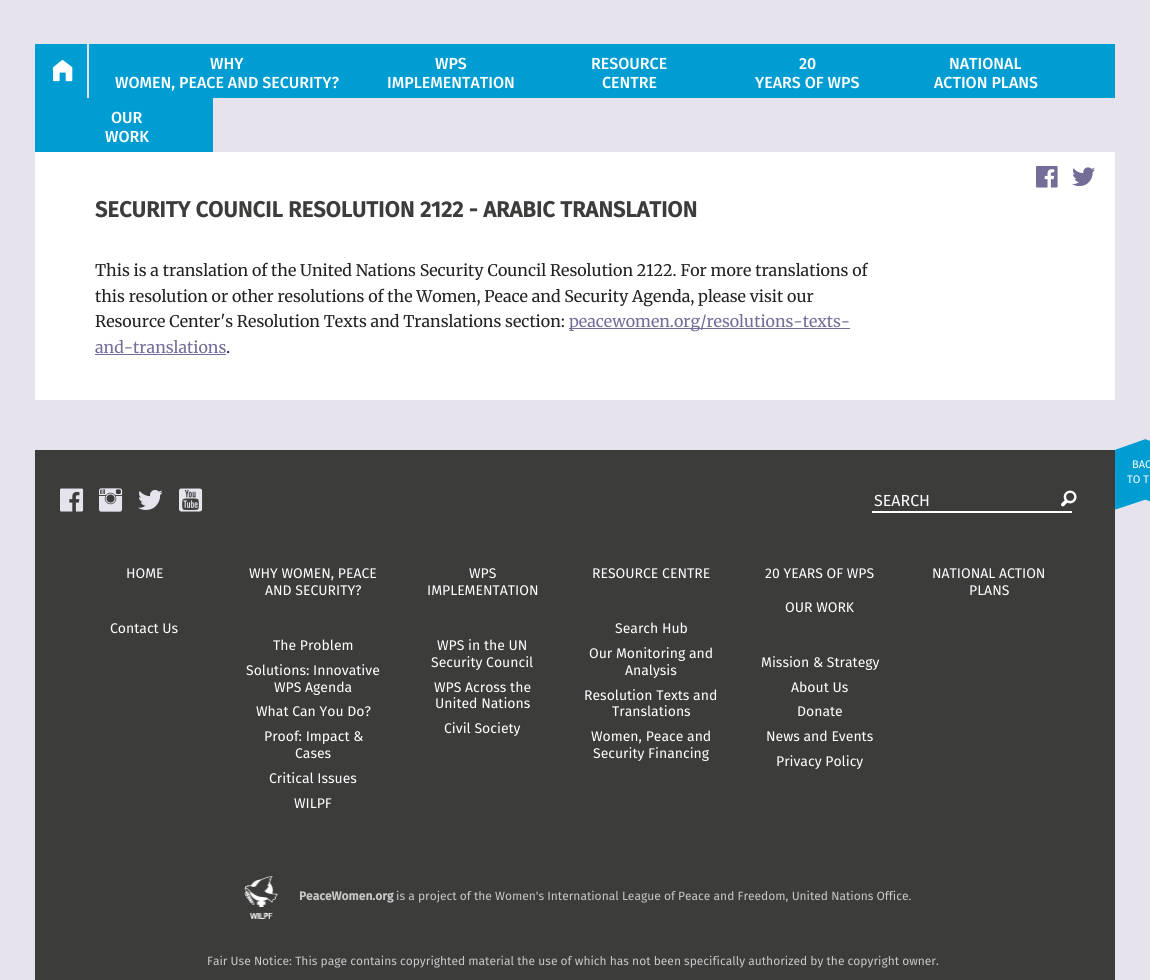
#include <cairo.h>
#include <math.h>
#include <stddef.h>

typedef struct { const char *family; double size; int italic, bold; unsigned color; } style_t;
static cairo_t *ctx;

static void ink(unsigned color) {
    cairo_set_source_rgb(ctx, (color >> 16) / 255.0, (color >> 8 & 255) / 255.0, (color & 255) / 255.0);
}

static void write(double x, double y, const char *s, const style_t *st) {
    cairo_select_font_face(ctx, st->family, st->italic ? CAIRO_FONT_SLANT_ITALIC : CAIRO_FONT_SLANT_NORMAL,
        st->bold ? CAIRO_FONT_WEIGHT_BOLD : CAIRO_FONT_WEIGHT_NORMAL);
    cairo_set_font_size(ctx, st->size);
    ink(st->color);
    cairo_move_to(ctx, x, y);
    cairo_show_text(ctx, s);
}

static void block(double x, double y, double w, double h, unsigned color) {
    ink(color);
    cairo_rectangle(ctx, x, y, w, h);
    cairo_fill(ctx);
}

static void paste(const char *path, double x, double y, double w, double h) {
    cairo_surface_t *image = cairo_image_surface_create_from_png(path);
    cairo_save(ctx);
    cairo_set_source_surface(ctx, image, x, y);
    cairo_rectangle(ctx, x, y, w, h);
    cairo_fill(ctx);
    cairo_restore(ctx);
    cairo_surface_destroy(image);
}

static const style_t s1 = {"Fira Sans Medium", 16, 0, 0, 0xffffff};
static const style_t s2 = {"Fira Sans", 22, 0, 1, 0x3c3c3b};
static const style_t s3 = {"Merriweather", 16, 0, 0, 0x222222};
static const style_t s4 = {"Merriweather", 16, 0, 0, 0x736d98};
static const style_t s5 = {"Fira Sans", 11, 0, 0, 0xffffff};
static const style_t s6 = {"Fira Sans", 16, 0, 0, 0xffffff};
static const style_t s7 = {"Fira Sans", 14, 0, 0, 0xffffff};
static const style_t s8 = {"Fira Sans", 12, 0, 1, 0xc8c8c8};
static const style_t s9 = {"Fira Sans", 12, 0, 0, 0xc8c8c8};

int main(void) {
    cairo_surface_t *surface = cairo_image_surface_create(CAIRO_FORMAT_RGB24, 1150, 980);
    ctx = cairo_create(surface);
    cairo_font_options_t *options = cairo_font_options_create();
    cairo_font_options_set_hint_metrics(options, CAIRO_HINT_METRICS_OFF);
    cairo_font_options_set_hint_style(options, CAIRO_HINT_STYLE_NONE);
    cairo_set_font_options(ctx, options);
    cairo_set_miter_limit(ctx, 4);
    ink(0xe6e3ec);
    cairo_paint(ctx);
    block(35, 44, 1080, 54, 0x009dd3);
    block(87, 44, 2, 54, 0xe6e3ec);
    paste("pic1.png", 53, 59, 20, 23);
    write(210, 69, "WHY", &s1);
    write(115, 88, "WOMEN, PEACE AND SECURITY?", &s1);
    write(435, 69, "WPS", &s1);
    write(387, 88, "IMPLEMENTATION", &s1);
    write(591, 69, "RESOURCE", &s1);
    write(602, 88, "CENTRE", &s1);
    write(799, 69, "20", &s1);
    write(755, 88, "YEARS OF WPS", &s1);
    write(949, 69, "NATIONAL", &s1);
    write(934, 88, "ACTION PLANS", &s1);
    block(35, 98, 178, 54, 0x009dd3);
    write(111, 123, "OUR", &s1);
    write(105, 142, "WORK", &s1);
    block(35, 152, 1080, 248, 0xffffff);
    paste("pic2.png", 1036, 166, 22, 22);
    paste("pic3.png", 1072, 167, 23, 20);
    write(95, 217, "SECURITY COUNCIL RESOLUTION 2122 - ARABIC TRANSLATION", &s2);
    write(95, 276, "This is a translation of the United Nations Security Council Resolution 2122. For more translations of", &s3);
    write(95, 302, "this resolution or other resolutions of the Women, Peace and Security Agenda, please visit our", &s3);
    write(95, 327, "Resource Center's Resolution Texts and Translations section:", &s3);
    block(569, 328, 281, 1, 0x736d98);
    write(569, 327, "peacewomen.org/resolutions-texts-", &s4);
    write(95, 353, "and-translations", &s4);
    block(95, 354, 131, 1, 0x736d98);
    write(226, 353, ".", &s3);
    block(35, 450, 1080, 530, 0x3c3c3b);
    paste("pic4.png", 1115, 439, 35, 71);
    write(1132, 468, "BAC", &s5);
    write(1127, 483, "TO T", &s5);
    paste("pic5.png", 60, 488, 24, 24);
    paste("pic6.png", 99, 488, 24, 24);
    paste("pic7.png", 138, 490, 25, 20);
    paste("pic8.png", 179, 488, 24, 24);
    block(872, 511, 200, 2, 0xffffff);
    write(874, 506, "SEARCH", &s6);
    paste("pic9.png", 1061, 490, 16, 17);
    write(126, 578, "HOME", &s7);
    write(110, 633, "Contact Us", &s7);
    write(249, 578, "WHY WOMEN, PEACE", &s7);
    write(265, 595, "AND SECURITY?", &s7);
    write(273, 650, "The Problem", &s7);
    write(246, 675, "Solutions: Innovative", &s7);
    write(274, 692, "WPS Agenda", &s7);
    write(256, 716, "What Can You Do?", &s7);
    write(264, 741, "Proof: Impact &", &s7);
    write(295, 758, "Cases", &s7);
    write(269, 783, "Critical Issues", &s7);
    write(294, 808, "WILPF", &s7);
    write(469, 578, "WPS", &s7);
    write(427, 595, "IMPLEMENTATION", &s7);
    write(437, 650, "WPS in the UN", &s7);
    write(431, 667, "Security Council", &s7);
    write(434, 692, "WPS Across the", &s7);
    write(435, 708, "United Nations", &s7);
    write(444, 733, "Civil Society", &s7);
    write(592, 578, "RESOURCE CENTRE", &s7);
    write(615, 633, "Search Hub", &s7);
    write(589, 658, "Our Monitoring and", &s7);
    write(625, 675, "Analysis", &s7);
    write(584, 700, "Resolution Texts and", &s7);
    write(612, 716, "Translations", &s7);
    write(591, 741, "Women, Peace and", &s7);
    write(593, 758, "Security Financing", &s7);
    write(765, 578, "20 YEARS OF WPS", &s7);
    write(932, 578, "NATIONAL ACTION", &s7);
    write(969, 595, "PLANS", &s7);
    write(785, 612, "OUR WORK", &s7);
    write(761, 667, "Mission & Strategy", &s7);
    write(791, 692, "About Us", &s7);
    write(797, 716, "Donate", &s7);
    write(766, 741, "News and Events", &s7);
    write(776, 766, "Privacy Policy", &s7);
    paste("pic10.png", 244, 876, 34, 43);
    write(299, 900, "PeaceWomen.org", &s8);
    write(396, 900, "is a project of the Women's International League of Peace and Freedom, United Nations Office.", &s9);
    write(207, 965, "Fair Use Notice: This page contains copyrighted material the use of which has not been specifically authorized by the copyright owner.", &s9);
    cairo_surface_write_to_png(surface, "screenshot.png");
    cairo_font_options_destroy(options);
    cairo_destroy(ctx);
    cairo_surface_destroy(surface);
    return 0;
}
